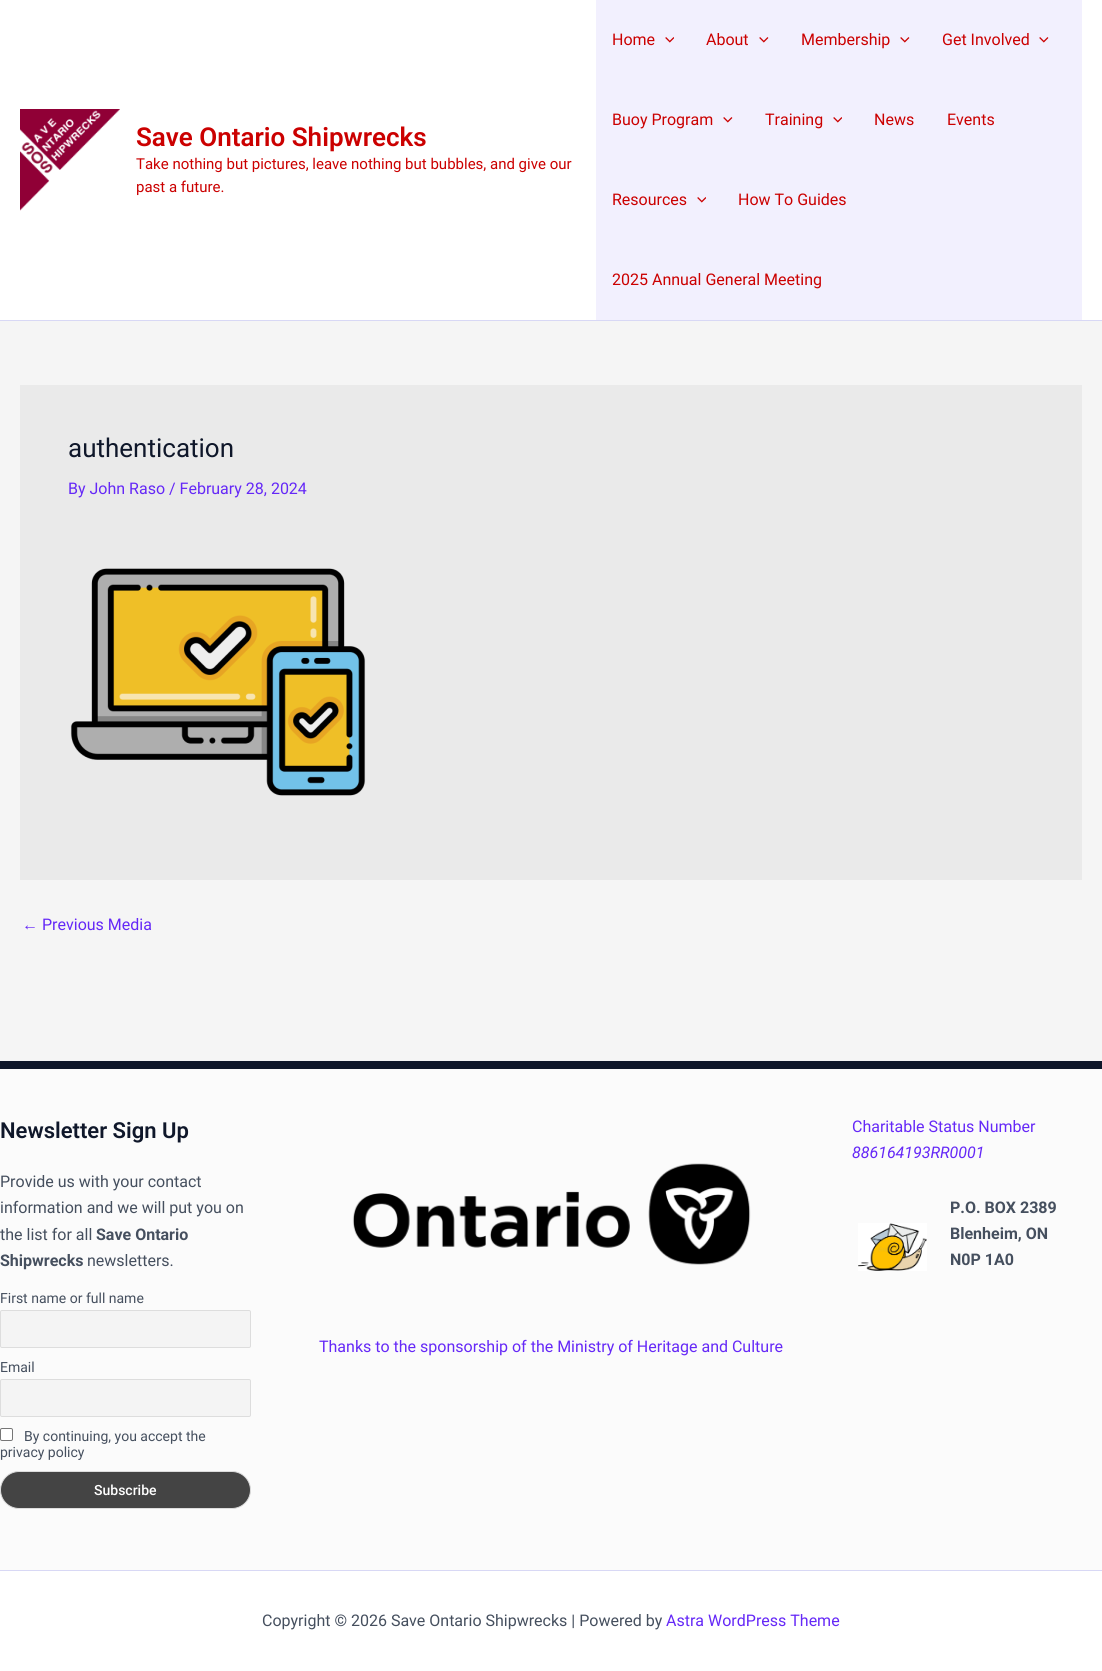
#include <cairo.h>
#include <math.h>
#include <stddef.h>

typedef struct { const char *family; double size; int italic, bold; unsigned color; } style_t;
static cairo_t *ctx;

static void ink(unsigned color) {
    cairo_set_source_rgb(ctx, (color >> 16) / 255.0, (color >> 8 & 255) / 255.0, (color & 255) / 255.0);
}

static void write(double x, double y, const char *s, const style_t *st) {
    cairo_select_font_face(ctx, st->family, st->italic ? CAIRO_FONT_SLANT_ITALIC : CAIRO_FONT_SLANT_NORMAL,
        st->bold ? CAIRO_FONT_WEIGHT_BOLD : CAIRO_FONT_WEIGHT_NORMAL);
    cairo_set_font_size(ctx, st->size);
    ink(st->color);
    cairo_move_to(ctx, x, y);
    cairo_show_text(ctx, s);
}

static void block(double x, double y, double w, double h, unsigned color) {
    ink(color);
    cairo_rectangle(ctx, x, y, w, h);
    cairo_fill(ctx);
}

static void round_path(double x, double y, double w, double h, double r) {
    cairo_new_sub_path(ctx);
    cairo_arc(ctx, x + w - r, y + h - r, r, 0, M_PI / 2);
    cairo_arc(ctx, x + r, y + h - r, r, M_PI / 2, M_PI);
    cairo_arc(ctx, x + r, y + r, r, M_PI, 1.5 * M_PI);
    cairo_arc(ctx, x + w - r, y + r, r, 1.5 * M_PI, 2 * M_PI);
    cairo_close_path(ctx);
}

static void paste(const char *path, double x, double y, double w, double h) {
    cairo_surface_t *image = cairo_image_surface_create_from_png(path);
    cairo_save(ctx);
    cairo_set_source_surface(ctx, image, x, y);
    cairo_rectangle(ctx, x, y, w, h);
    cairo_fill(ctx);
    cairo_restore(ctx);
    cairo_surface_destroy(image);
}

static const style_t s1 = {"Roboto SemiBold", 26, 0, 0, 0xcb0000};
static const style_t s2 = {"Roboto", 15, 0, 0, 0xcb0000};
static const style_t s3 = {"Roboto", 16, 0, 0, 0xcb0000};
static const style_t s4 = {"Roboto", 26, 0, 0, 0x0f172a};
static const style_t s5 = {"Roboto", 16, 0, 0, 0x6528f7};
static const style_t s6 = {"Liberation Sans", 16, 0, 0, 0x6528f7};
static const style_t s7 = {"Roboto SemiBold", 22, 0, 0, 0x0f172a};
static const style_t s8 = {"Roboto", 16, 0, 0, 0x454f5e};
static const style_t s9 = {"Roboto", 16, 0, 1, 0x454f5e};
static const style_t s10 = {"Roboto", 14, 0, 0, 0x454f5e};
static const style_t s11 = {"Roboto Medium", 14, 0, 0, 0xffffff};
static const style_t s12 = {"Roboto", 16, 1, 0, 0x6528f7};

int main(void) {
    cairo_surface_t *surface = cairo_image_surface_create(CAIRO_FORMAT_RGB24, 1102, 1671);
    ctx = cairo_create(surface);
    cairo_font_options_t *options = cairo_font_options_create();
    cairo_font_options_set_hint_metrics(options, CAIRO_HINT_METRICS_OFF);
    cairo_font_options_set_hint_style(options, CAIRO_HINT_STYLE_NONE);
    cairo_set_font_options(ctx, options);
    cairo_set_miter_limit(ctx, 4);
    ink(0xf5f5f5);
    cairo_paint(ctx);
    block(0, 0, 1102, 320, 0xffffff);
    block(0, 320, 1102, 1, 0xd8d8f5);
    paste("pic1.png", 20, 109, 100, 102);
    write(136, 146, "Save Ontario Shipwrecks", &s1);
    write(136, 169, "Take nothing but pictures, leave nothing but bubbles, and give our", &s2);
    write(136, 192, "past a future.", &s2);
    block(596, 0, 486, 320, 0xf2f0fe);
    write(612, 45, "Home", &s3);
    paste("pic2.png", 665, 37, 9, 6);
    write(706, 45, "About", &s3);
    paste("pic3.png", 759, 37, 10, 6);
    write(801, 45, "Membership", &s3);
    paste("pic3.png", 900, 37, 10, 6);
    write(942, 45, "Get Involved", &s3);
    paste("pic3.png", 1039, 37, 10, 6);
    write(612, 125, "Buoy Program", &s3);
    paste("pic3.png", 723, 117, 10, 6);
    write(765, 125, "Training", &s3);
    paste("pic2.png", 833, 117, 9, 6);
    write(874, 125, "News", &s3);
    write(947, 125, "Events", &s3);
    write(612, 205, "Resources", &s3);
    paste("pic2.png", 697, 197, 9, 6);
    write(738, 205, "How To Guides", &s3);
    write(612, 285, "2025 Annual General Meeting", &s3);
    block(20, 385, 1062, 495, 0xeaeaea);
    write(68, 457, "authentication", &s4);
    write(68, 494, "By John Raso / February 28, 2024", &s5);
    paste("pic4.png", 70, 568, 296, 228);
    write(22, 930, "←", &s6);
    write(42, 930, "Previous Media", &s5);
    block(0, 1069, 1102, 501, 0xfbfbfb);
    block(0, 1061, 1102, 8, 0x0f172a);
    write(0, 1138, "Newsletter Sign Up", &s7);
    write(0, 1187, "Provide us with your contact", &s8);
    write(0, 1213, "information and we will put you on", &s8);
    write(0, 1240, "the list for all", &s8);
    write(96, 1240, "Save Ontario", &s9);
    write(0, 1266, "Shipwrecks", &s9);
    write(87, 1266, "newsletters.", &s8);
    write(0, 1303, "First name or full name", &s10);
    ink(0xf4f4f4);
    round_path(0.5, 1310.5, 250, 37, 1.5);
    cairo_fill_preserve(ctx);
    ink(0xdddddd);
    cairo_set_line_width(ctx, 1);
    cairo_stroke(ctx);
    write(0, 1372, "Email", &s10);
    ink(0xf4f4f4);
    round_path(0.5, 1379.5, 250, 37, 1.5);
    cairo_fill_preserve(ctx);
    ink(0xdddddd);
    cairo_stroke(ctx);
    ink(0xffffff);
    round_path(0.5, 1428.5, 12, 12, 1.5);
    cairo_fill_preserve(ctx);
    ink(0x767676);
    cairo_stroke(ctx);
    write(24, 1441, "By continuing, you accept the", &s10);
    write(0, 1457, "privacy policy", &s10);
    ink(0x444444);
    round_path(0.5, 1471.5, 250, 37, 18.5);
    cairo_fill_preserve(ctx);
    ink(0xdddddd);
    cairo_stroke(ctx);
    write(94, 1495, "Subscribe", &s11);
    paste("pic5.png", 352, 1163, 399, 102);
    write(319, 1352, "Thanks to the sponsorship of the Ministry of Heritage and Culture", &s5);
    write(852, 1132, "Charitable Status Number", &s5);
    write(852, 1158, "886164193RR0001", &s12);
    paste("pic6.png", 858, 1223, 69, 48);
    write(950, 1213, "P.O. BOX 2389", &s9);
    write(950, 1239, "Blenheim, ON", &s9);
    write(950, 1265, "N0P 1A0", &s9);
    block(0, 1571, 1102, 100, 0xffffff);
    block(0, 1570, 1102, 1, 0xd8d8f5);
    write(262, 1626, "Copyright © 2026 Save Ontario Shipwrecks | Powered by", &s8);
    write(666, 1626, "Astra WordPress Theme", &s5);
    cairo_surface_write_to_png(surface, "screenshot.png");
    cairo_font_options_destroy(options);
    cairo_destroy(ctx);
    cairo_surface_destroy(surface);
    return 0;
}
